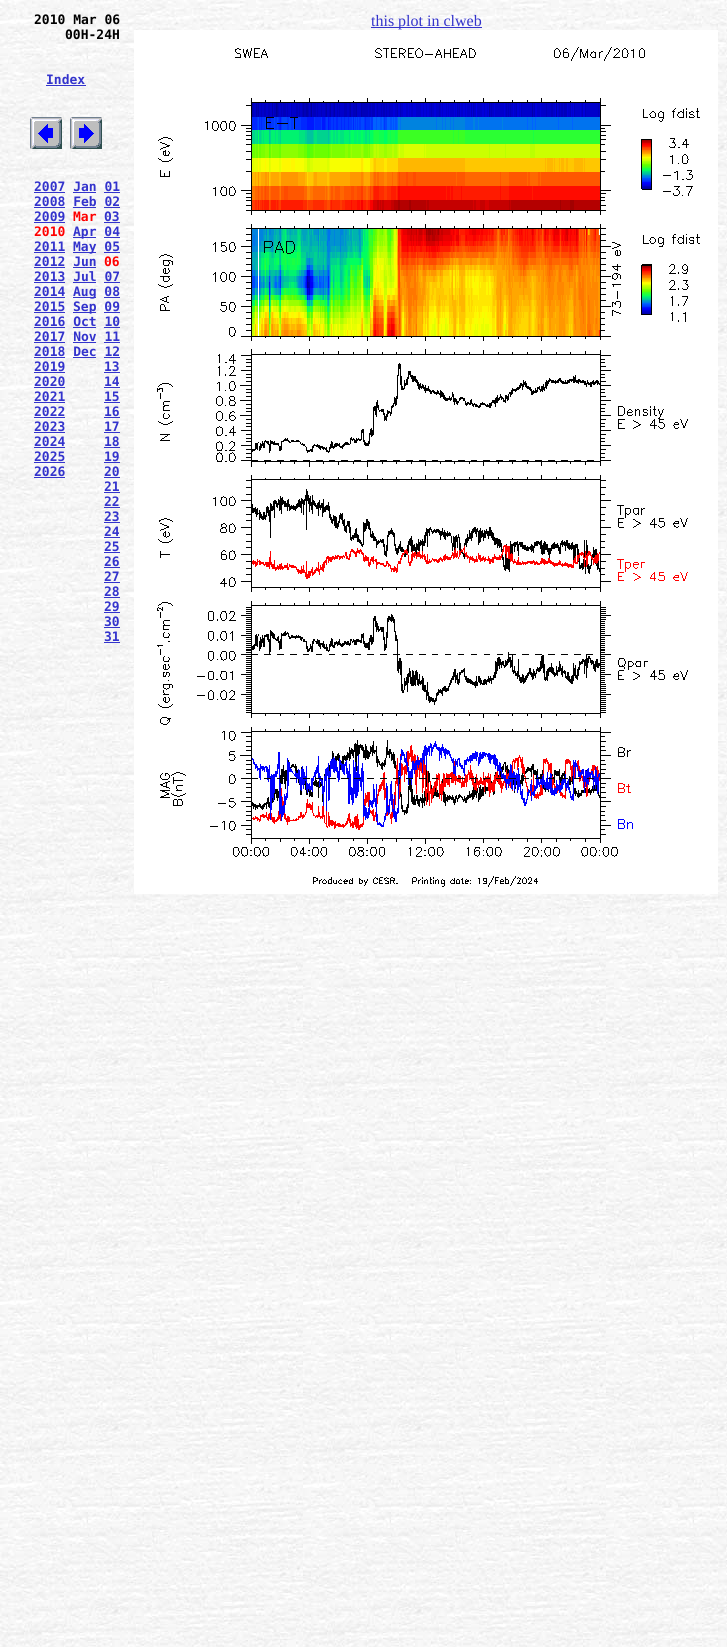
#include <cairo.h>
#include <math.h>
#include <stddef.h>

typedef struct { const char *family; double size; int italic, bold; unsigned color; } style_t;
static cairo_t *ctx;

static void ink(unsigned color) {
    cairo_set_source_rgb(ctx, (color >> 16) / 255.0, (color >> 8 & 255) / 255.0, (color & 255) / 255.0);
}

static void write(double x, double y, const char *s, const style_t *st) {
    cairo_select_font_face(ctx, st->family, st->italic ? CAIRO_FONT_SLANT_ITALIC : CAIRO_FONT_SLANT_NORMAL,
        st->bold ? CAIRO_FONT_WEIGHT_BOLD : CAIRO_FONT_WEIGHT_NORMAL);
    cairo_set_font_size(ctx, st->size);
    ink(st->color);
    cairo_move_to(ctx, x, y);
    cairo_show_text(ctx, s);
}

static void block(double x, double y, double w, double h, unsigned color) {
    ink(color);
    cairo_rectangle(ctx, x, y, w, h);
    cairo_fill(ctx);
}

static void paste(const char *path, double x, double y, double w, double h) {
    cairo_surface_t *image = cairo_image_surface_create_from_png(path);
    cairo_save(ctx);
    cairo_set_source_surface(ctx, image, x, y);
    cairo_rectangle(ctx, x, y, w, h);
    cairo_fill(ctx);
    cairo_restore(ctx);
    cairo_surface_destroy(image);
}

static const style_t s1 = {"DejaVu Sans Mono", 13, 0, 1, 0x000000};
static const style_t s2 = {"DejaVu Sans Mono", 13, 0, 1, 0x3333cc};
static const style_t s3 = {"DejaVu Sans Mono", 13, 0, 1, 0xff0000};
static const style_t s4 = {"Liberation Serif", 16, 0, 0, 0x3333cc};

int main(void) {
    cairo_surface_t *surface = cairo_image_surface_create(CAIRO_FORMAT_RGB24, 727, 1647);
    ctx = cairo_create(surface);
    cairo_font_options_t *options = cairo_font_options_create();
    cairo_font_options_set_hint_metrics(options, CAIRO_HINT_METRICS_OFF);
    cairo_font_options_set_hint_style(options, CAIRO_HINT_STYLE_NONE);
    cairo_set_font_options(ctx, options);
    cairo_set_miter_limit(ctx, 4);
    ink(0xffffff);
    cairo_paint(ctx);
    paste("pic1.png", 0, 0, 727, 1647);
    write(34, 24, "2010 Mar 06", &s1);
    write(65, 39, "00H-24H", &s1);
    write(46, 84, "Index", &s2);
    block(46, 85, 40, 1, 0x3333cc);
    paste("pic2.png", 30, 117, 32, 32);
    paste("pic3.png", 70, 117, 32, 32);
    write(34, 191, "2007 Jan 01", &s2);
    block(34, 192, 31, 1, 0x3333cc);
    block(73, 192, 23, 1, 0x3333cc);
    block(104, 192, 16, 1, 0x3333cc);
    write(34, 206, "2008 Feb 02", &s2);
    block(34, 207, 31, 1, 0x3333cc);
    block(73, 207, 23, 1, 0x3333cc);
    block(104, 207, 16, 1, 0x3333cc);
    write(34, 221, "2009", &s2);
    block(34, 222, 31, 1, 0x3333cc);
    write(73, 221, "Mar", &s3);
    write(104, 221, "03", &s2);
    block(104, 222, 16, 1, 0x3333cc);
    write(34, 236, "2010", &s3);
    block(73, 237, 23, 1, 0x3333cc);
    write(73, 236, "Apr 04", &s2);
    block(104, 237, 16, 1, 0x3333cc);
    write(34, 251, "2011", &s2);
    block(34, 252, 31, 1, 0x3333cc);
    block(73, 252, 23, 1, 0x3333cc);
    write(73, 251, "May 05", &s2);
    block(104, 252, 16, 1, 0x3333cc);
    write(34, 266, "2012 Jun", &s2);
    block(34, 267, 31, 1, 0x3333cc);
    block(73, 267, 23, 1, 0x3333cc);
    write(104, 266, "06", &s3);
    write(34, 281, "2013 Jul 07", &s2);
    block(34, 282, 31, 1, 0x3333cc);
    block(73, 282, 23, 1, 0x3333cc);
    block(104, 282, 16, 1, 0x3333cc);
    write(34, 296, "2014", &s2);
    block(34, 297, 31, 1, 0x3333cc);
    block(73, 297, 23, 1, 0x3333cc);
    write(73, 296, "Aug 08", &s2);
    block(104, 297, 16, 1, 0x3333cc);
    write(34, 311, "2015", &s2);
    block(34, 312, 31, 1, 0x3333cc);
    block(73, 312, 23, 1, 0x3333cc);
    write(73, 311, "Sep 09", &s2);
    block(104, 312, 16, 1, 0x3333cc);
    write(34, 326, "2016 Oct 10", &s2);
    block(34, 327, 31, 1, 0x3333cc);
    block(73, 327, 23, 1, 0x3333cc);
    block(104, 327, 16, 1, 0x3333cc);
    write(34, 341, "2017 Nov 11", &s2);
    block(34, 342, 31, 1, 0x3333cc);
    block(73, 342, 23, 1, 0x3333cc);
    block(104, 342, 16, 1, 0x3333cc);
    write(34, 356, "2018 Dec 12", &s2);
    block(34, 357, 31, 1, 0x3333cc);
    block(73, 357, 23, 1, 0x3333cc);
    block(104, 357, 16, 1, 0x3333cc);
    write(34, 371, "2019", &s2);
    block(34, 372, 31, 1, 0x3333cc);
    write(104, 371, "13", &s2);
    block(104, 372, 16, 1, 0x3333cc);
    write(34, 386, "2020", &s2);
    block(34, 387, 31, 1, 0x3333cc);
    write(104, 386, "14", &s2);
    block(104, 387, 16, 1, 0x3333cc);
    write(34, 401, "2021", &s2);
    block(34, 402, 31, 1, 0x3333cc);
    write(104, 401, "15", &s2);
    block(104, 402, 16, 1, 0x3333cc);
    write(34, 416, "2022", &s2);
    block(34, 417, 31, 1, 0x3333cc);
    write(104, 416, "16", &s2);
    block(104, 417, 16, 1, 0x3333cc);
    write(34, 431, "2023", &s2);
    block(34, 432, 31, 1, 0x3333cc);
    write(104, 431, "17", &s2);
    block(104, 432, 16, 1, 0x3333cc);
    write(34, 446, "2024", &s2);
    block(34, 447, 31, 1, 0x3333cc);
    write(104, 446, "18", &s2);
    block(104, 447, 16, 1, 0x3333cc);
    write(34, 461, "2025", &s2);
    block(34, 462, 31, 1, 0x3333cc);
    write(104, 461, "19", &s2);
    block(104, 462, 16, 1, 0x3333cc);
    write(34, 476, "2026", &s2);
    block(34, 477, 31, 1, 0x3333cc);
    write(104, 476, "20", &s2);
    block(104, 477, 16, 1, 0x3333cc);
    write(104, 491, "21", &s2);
    block(104, 492, 16, 1, 0x3333cc);
    write(104, 506, "22", &s2);
    block(104, 507, 16, 1, 0x3333cc);
    write(104, 521, "23", &s2);
    block(104, 522, 16, 1, 0x3333cc);
    write(104, 536, "24", &s2);
    block(104, 537, 16, 1, 0x3333cc);
    write(104, 551, "25", &s2);
    block(104, 552, 16, 1, 0x3333cc);
    write(104, 566, "26", &s2);
    block(104, 567, 16, 1, 0x3333cc);
    write(104, 581, "27", &s2);
    block(104, 582, 16, 1, 0x3333cc);
    write(104, 596, "28", &s2);
    block(104, 597, 16, 1, 0x3333cc);
    write(104, 611, "29", &s2);
    block(104, 612, 16, 1, 0x3333cc);
    write(104, 626, "30", &s2);
    block(104, 627, 16, 1, 0x3333cc);
    write(104, 641, "31", &s2);
    block(104, 642, 16, 1, 0x3333cc);
    block(371, 27, 111, 1, 0x3333cc);
    write(371, 26, "this plot in clweb", &s4);
    paste("pic4.png", 134, 30, 584, 864);
    cairo_surface_write_to_png(surface, "screenshot.png");
    cairo_font_options_destroy(options);
    cairo_destroy(ctx);
    cairo_surface_destroy(surface);
    return 0;
}
